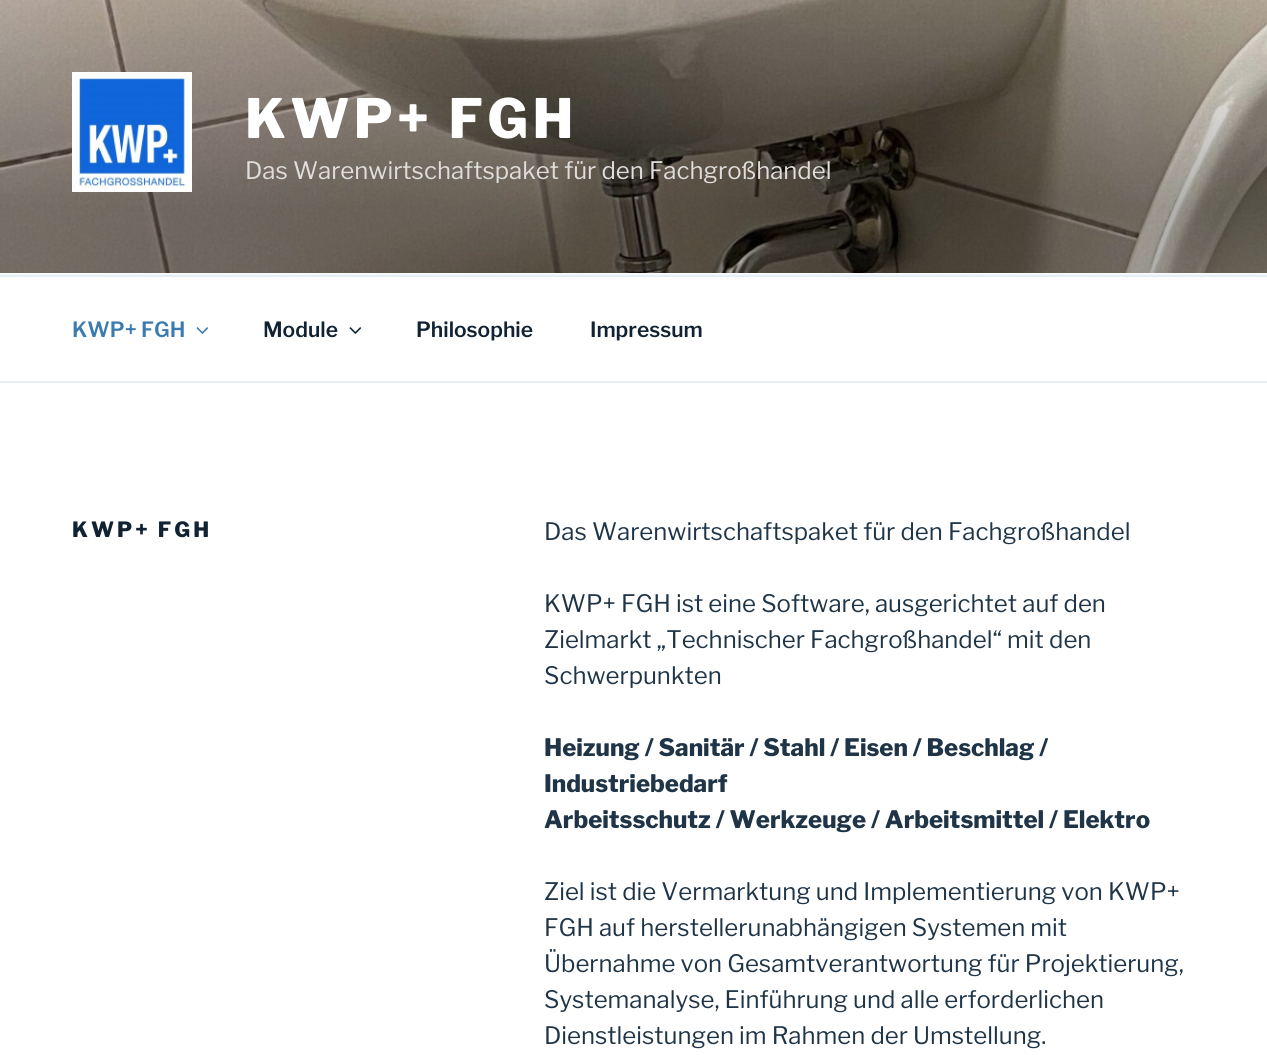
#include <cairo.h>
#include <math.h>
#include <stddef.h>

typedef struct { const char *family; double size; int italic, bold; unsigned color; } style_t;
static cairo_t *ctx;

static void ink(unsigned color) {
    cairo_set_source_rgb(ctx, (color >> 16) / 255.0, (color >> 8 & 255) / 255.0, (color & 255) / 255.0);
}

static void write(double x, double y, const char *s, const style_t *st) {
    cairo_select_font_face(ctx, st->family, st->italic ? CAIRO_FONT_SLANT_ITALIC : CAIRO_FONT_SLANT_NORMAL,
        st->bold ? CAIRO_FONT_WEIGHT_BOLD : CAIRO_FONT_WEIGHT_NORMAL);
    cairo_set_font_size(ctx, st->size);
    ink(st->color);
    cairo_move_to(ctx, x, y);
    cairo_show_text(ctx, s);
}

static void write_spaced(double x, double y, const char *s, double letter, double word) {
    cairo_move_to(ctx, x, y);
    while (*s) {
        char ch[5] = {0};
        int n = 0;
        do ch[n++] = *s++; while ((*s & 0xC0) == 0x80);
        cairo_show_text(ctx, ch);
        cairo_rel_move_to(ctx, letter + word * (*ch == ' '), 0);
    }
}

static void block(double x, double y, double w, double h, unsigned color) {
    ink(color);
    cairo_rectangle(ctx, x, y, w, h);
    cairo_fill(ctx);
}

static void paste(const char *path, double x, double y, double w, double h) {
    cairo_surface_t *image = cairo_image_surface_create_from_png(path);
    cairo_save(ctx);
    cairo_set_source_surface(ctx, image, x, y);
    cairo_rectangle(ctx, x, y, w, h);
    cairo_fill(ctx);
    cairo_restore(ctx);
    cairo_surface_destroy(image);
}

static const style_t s1 = {"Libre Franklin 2 Thin", 24, 0, 0, 0xdfdedc};
static const style_t s2 = {"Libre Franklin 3 Thin", 21, 0, 0, 0x3b7bb0};
static const style_t s3 = {"Libre Franklin 3 Thin", 21, 0, 0, 0x112332};
static const style_t s4 = {"Libre Franklin 2 Thin", 24, 0, 0, 0x1f3547};
static const style_t s5 = {"Libre Franklin Thin", 24, 0, 0, 0x1f3547};

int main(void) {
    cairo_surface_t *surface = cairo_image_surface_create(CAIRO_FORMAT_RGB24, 1267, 1055);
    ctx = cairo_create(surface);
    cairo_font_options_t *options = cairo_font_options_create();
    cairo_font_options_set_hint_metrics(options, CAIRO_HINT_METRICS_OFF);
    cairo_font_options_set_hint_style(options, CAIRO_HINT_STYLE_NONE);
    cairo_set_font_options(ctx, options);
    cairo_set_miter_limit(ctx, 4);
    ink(0xffffff);
    cairo_paint(ctx);
    block(0, 273, 1267, 2, 0xf7fafc);
    paste("pic1.png", 0, 0, 1267, 273);
    paste("pic2.png", 72, 72, 120, 120);
    cairo_select_font_face(ctx, "Libre Franklin Thin", CAIRO_FONT_SLANT_NORMAL, CAIRO_FONT_WEIGHT_NORMAL);
    cairo_set_font_size(ctx, 54);
    ink(0xffffff);
    write_spaced(245, 138, "KWP+ FGH", 4.25, 0);
    write(245, 179, "Das Warenwirtschaftspaket für den Fachgroßhandel", &s1);
    block(0, 275, 1267, 2, 0xe4eef6);
    block(0, 381, 1267, 2, 0xe4eef6);
    write(72, 337, "KWP+ FGH", &s2);
    paste("pic3.png", 196, 327, 13, 7);
    write(263, 337, "Module", &s3);
    paste("pic4.png", 349, 327, 13, 7);
    write(416, 337, "Philosophie", &s3);
    write(590, 337, "Impressum", &s3);
    cairo_select_font_face(ctx, "Libre Franklin Thin", CAIRO_FONT_SLANT_NORMAL, CAIRO_FONT_WEIGHT_NORMAL);
    write_spaced(72, 537, "KWP+ FGH", 3, 0);
    write(544, 540, "Das Warenwirtschaftspaket für den Fachgroßhandel", &s4);
    write(544, 612, "KWP+ FGH ist eine Software, ausgerichtet auf den", &s4);
    write(544, 648, "Zielmarkt „Technischer Fachgroßhandel“ mit den", &s4);
    write(544, 684, "Schwerpunkten", &s4);
    write(544, 756, "Heizung / Sanitär / Stahl / Eisen / Beschlag /", &s5);
    write(544, 792, "Industriebedarf", &s5);
    write(544, 828, "Arbeitsschutz / Werkzeuge / Arbeitsmittel / Elektro", &s5);
    write(544, 900, "Ziel ist die Vermarktung und Implementierung von KWP+", &s4);
    write(544, 936, "FGH auf herstellerunabhängigen Systemen mit", &s4);
    write(544, 972, "Übernahme von Gesamtverantwortung für Projektierung,", &s4);
    write(544, 1008, "Systemanalyse, Einführung und alle erforderlichen", &s4);
    write(544, 1044, "Dienstleistungen im Rahmen der Umstellung.", &s4);
    cairo_surface_write_to_png(surface, "screenshot.png");
    cairo_font_options_destroy(options);
    cairo_destroy(ctx);
    cairo_surface_destroy(surface);
    return 0;
}
